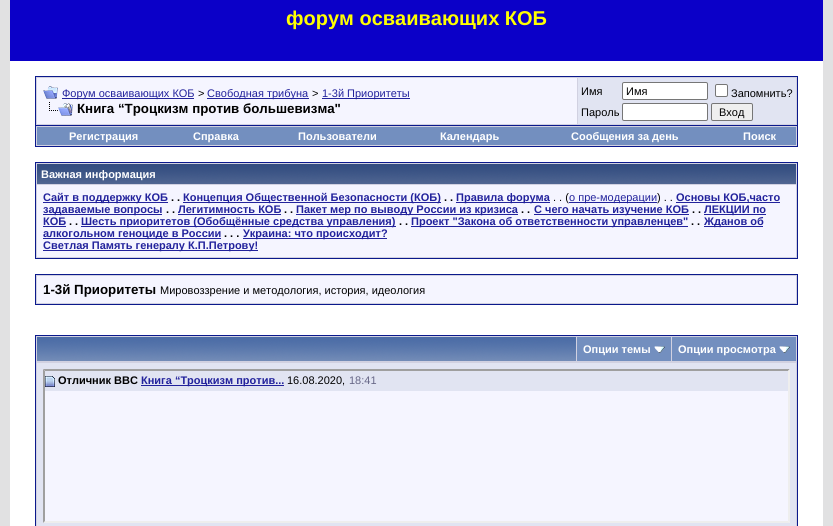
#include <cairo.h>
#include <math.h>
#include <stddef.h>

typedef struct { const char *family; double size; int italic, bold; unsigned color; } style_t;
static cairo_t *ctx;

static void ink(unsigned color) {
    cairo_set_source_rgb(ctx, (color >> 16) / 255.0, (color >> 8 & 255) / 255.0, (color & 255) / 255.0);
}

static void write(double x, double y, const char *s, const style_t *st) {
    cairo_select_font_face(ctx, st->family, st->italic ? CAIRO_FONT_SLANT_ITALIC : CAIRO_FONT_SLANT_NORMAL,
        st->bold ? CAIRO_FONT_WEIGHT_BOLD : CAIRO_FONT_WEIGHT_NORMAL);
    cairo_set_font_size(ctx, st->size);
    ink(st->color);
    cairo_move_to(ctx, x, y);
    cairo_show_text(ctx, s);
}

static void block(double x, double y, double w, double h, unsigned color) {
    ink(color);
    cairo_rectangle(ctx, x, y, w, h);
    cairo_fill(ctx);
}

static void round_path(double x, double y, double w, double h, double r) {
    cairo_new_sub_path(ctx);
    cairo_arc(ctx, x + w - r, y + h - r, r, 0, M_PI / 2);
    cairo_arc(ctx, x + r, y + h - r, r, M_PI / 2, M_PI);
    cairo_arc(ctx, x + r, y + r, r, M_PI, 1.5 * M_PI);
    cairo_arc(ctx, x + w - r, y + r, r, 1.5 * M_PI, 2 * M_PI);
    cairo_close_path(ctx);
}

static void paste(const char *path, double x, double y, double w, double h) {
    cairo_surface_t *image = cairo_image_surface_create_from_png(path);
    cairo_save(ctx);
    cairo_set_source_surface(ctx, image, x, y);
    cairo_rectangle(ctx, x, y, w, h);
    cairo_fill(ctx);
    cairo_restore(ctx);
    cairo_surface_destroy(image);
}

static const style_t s1 = {"Liberation Sans", 20, 0, 1, 0xffff00};
static const style_t s2 = {"Liberation Sans", 11, 0, 0, 0x22229c};
static const style_t s3 = {"Liberation Sans", 11, 0, 0, 0x000000};
static const style_t s4 = {"Liberation Sans", 13.3, 0, 1, 0x000000};
static const style_t s5 = {"Liberation Sans", 11, 0, 1, 0xffffff};
static const style_t s6 = {"Liberation Sans", 11, 0, 1, 0x22229c};
static const style_t s7 = {"Liberation Sans", 11, 0, 1, 0x000000};
static const style_t s8 = {"Liberation Sans", 11, 0, 0, 0x666686};

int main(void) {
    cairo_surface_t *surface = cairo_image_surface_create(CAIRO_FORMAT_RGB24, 833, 526);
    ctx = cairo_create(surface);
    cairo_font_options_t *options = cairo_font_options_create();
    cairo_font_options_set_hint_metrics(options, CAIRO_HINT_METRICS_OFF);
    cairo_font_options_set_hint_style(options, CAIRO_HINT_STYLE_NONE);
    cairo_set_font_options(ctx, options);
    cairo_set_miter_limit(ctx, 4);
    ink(0xe1e1e2);
    cairo_paint(ctx);
    block(10, 0, 813, 61, 0x0b00c8);
    write(286, 25, "форум осваивающих КОБ", &s1);
    block(10, 61, 813, 465, 0xffffff);
    ink(0xd1d1e1);
    cairo_rectangle(ctx, 35.5, 76.5, 762, 49);
    cairo_fill_preserve(ctx);
    ink(0x0b198c);
    cairo_set_line_width(ctx, 1);
    cairo_stroke(ctx);
    block(37, 78, 540, 46, 0xf5f5ff);
    paste("pic1.png", 43, 86, 15, 13);
    block(62, 98, 132, 1, 0x22229c);
    write(62, 97, "Форум осваивающих КОБ", &s2);
    write(198, 97, ">", &s3);
    block(207, 98, 102, 1, 0x22229c);
    write(207, 97, "Свободная трибуна", &s2);
    write(312, 97, ">", &s3);
    block(322, 98, 88, 1, 0x22229c);
    write(322, 97, "1-3й Приоритеты", &s2);
    paste("pic2.png", 49, 102, 24, 14);
    write(77, 113, "Книга “Троцкизм против большевизма\"", &s4);
    block(578, 78, 218, 46, 0xe1e4f2);
    write(581, 95, "Имя", &s3);
    ink(0xffffff);
    round_path(622.5, 82.5, 85, 17, 1.5);
    cairo_fill_preserve(ctx);
    ink(0x767676);
    cairo_stroke(ctx);
    write(626, 95, "Имя", &s3);
    ink(0xffffff);
    round_path(715.5, 84.5, 12, 12, 1.5);
    cairo_fill_preserve(ctx);
    ink(0x767676);
    cairo_stroke(ctx);
    write(731, 97, "Запомнить?", &s3);
    write(581, 116, "Пароль", &s3);
    ink(0xffffff);
    round_path(622.5, 103.5, 85, 17, 1.5);
    cairo_fill_preserve(ctx);
    ink(0x767676);
    cairo_stroke(ctx);
    ink(0xefefef);
    round_path(711.5, 103.5, 41, 17, 1.5);
    cairo_fill_preserve(ctx);
    ink(0x767676);
    cairo_stroke(ctx);
    write(719, 116, "Вход", &s3);
    block(36, 126, 761, 20, 0xd1d1e1);
    block(797, 126, 1, 21, 0x0b198c);
    block(35, 146, 763, 1, 0x0b198c);
    block(35, 126, 1, 21, 0x0b198c);
    block(37, 127, 759, 18, 0x738fbf);
    write(69, 140, "Регистрация", &s5);
    write(193, 140, "Справка", &s5);
    write(298, 140, "Пользователи", &s5);
    write(440, 140, "Календарь", &s5);
    write(571, 140, "Сообщения за день", &s5);
    write(743, 140, "Поиск", &s5);
    ink(0xd1d1e1);
    cairo_rectangle(ctx, 35.5, 162.5, 762, 96);
    cairo_fill_preserve(ctx);
    ink(0x0b198c);
    cairo_stroke(ctx);
    paste("pic3.png", 37, 164, 759, 20);
    write(41, 178, "Важная информация", &s5);
    block(37, 185, 759, 72, 0xf5f5ff);
    block(43, 202, 125, 1, 0x22229c);
    write(43, 201, "Сайт в поддержку КОБ", &s6);
    write(171, 201, ". .", &s7);
    block(183, 202, 258, 1, 0x22229c);
    write(183, 201, "Концепция Общественной Безопасности (КОБ)", &s6);
    write(444, 201, ". .", &s7);
    block(456, 202, 94, 1, 0x22229c);
    write(456, 201, "Правила форума", &s6);
    write(553, 201, ". . (", &s3);
    block(569, 202, 88, 1, 0x22229c);
    write(569, 201, "о пре-модерации", &s2);
    write(657, 201, ") . .", &s3);
    block(676, 202, 104, 1, 0x22229c);
    write(676, 201, "Основы КОБ,часто", &s6);
    block(43, 214, 119, 1, 0x22229c);
    write(43, 213, "задаваемые вопросы", &s6);
    write(166, 213, ". .", &s7);
    write(178, 213, "Легитимность КОБ", &s6);
    write(284, 213, ". .", &s7);
    block(178, 214, 103, 1, 0x22229c);
    block(296, 214, 222, 1, 0x22229c);
    write(296, 213, "Пакет мер по выводу России из кризиса", &s6);
    write(521, 213, ". .", &s7);
    block(534, 214, 155, 1, 0x22229c);
    write(534, 213, "С чего начать изучение КОБ", &s6);
    write(692, 213, ". .", &s7);
    block(704, 214, 62, 1, 0x22229c);
    write(704, 213, "ЛЕКЦИИ по", &s6);
    write(43, 225, "КОБ", &s6);
    write(69, 225, ". .", &s7);
    block(43, 226, 23, 1, 0x22229c);
    block(81, 226, 315, 1, 0x22229c);
    write(81, 225, "Шесть приоритетов (Обобщённые средства управления)", &s6);
    write(399, 225, ". .", &s7);
    block(411, 226, 277, 1, 0x22229c);
    write(411, 225, "Проект \"Закона об ответственности управленцев\"", &s6);
    write(691, 225, ". .", &s7);
    block(704, 226, 59, 1, 0x22229c);
    write(704, 225, "Жданов об", &s6);
    block(43, 238, 178, 1, 0x22229c);
    write(43, 237, "алкогольном геноциде в России", &s6);
    write(224, 237, ". . .", &s7);
    block(243, 238, 144, 1, 0x22229c);
    write(243, 237, "Украина: что происходит?", &s6);
    block(43, 250, 215, 1, 0x22229c);
    write(43, 249, "Светлая Память генералу К.П.Петрову!", &s6);
    ink(0xd1d1e1);
    cairo_rectangle(ctx, 35.5, 274.5, 762, 30);
    cairo_fill_preserve(ctx);
    ink(0x0b198c);
    cairo_stroke(ctx);
    block(37, 276, 759, 27, 0xf5f5ff);
    write(43, 294, "1-3й Приоритеты", &s4);
    write(160, 294, "Мировоззрение и методология, история, идеология", &s3);
    block(36, 336, 761, 190, 0xd1d1e1);
    block(35, 335, 763, 1, 0x0b198c);
    block(797, 335, 1, 191, 0x0b198c);
    block(35, 335, 1, 191, 0x0b198c);
    paste("pic4.png", 37, 337, 539, 24);
    block(577, 337, 94, 24, 0x738fbf);
    write(583, 353, "Опции темы", &s5);
    paste("pic5.png", 654, 346, 11, 7);
    block(672, 337, 124, 24, 0x738fbf);
    write(678, 353, "Опции просмотра", &s5);
    paste("pic5.png", 779, 346, 11, 7);
    block(37, 363, 759, 163, 0xe1e4f2);
    block(43, 369, 747, 154, 0xf5f5ff);
    ink(0x9f9f9f);
    cairo_new_path(ctx);
    cairo_move_to(ctx, 43, 369);
    cairo_line_to(ctx, 790, 369);
    cairo_line_to(ctx, 788, 371);
    cairo_line_to(ctx, 45, 371);
    cairo_close_path(ctx);
    cairo_fill(ctx);
    ink(0xeeeeee);
    cairo_new_path(ctx);
    cairo_move_to(ctx, 790, 369);
    cairo_line_to(ctx, 790, 523);
    cairo_line_to(ctx, 788, 521);
    cairo_line_to(ctx, 788, 371);
    cairo_close_path(ctx);
    cairo_fill(ctx);
    cairo_new_path(ctx);
    cairo_move_to(ctx, 790, 523);
    cairo_line_to(ctx, 43, 523);
    cairo_line_to(ctx, 45, 521);
    cairo_line_to(ctx, 788, 521);
    cairo_close_path(ctx);
    cairo_fill(ctx);
    ink(0x9f9f9f);
    cairo_new_path(ctx);
    cairo_move_to(ctx, 43, 523);
    cairo_line_to(ctx, 43, 369);
    cairo_line_to(ctx, 45, 371);
    cairo_line_to(ctx, 45, 521);
    cairo_close_path(ctx);
    cairo_fill(ctx);
    block(45, 371, 743, 20, 0xe1e4f2);
    paste("pic6.png", 45, 376, 10, 11);
    write(58, 384, "Отличник ВВС", &s7);
    block(141, 385, 143, 1, 0x22229c);
    write(141, 384, "Книга “Троцкизм против...", &s6);
    write(287, 384, "16.08.2020,", &s3);
    write(349, 384, "18:41", &s8);
    cairo_surface_write_to_png(surface, "screenshot.png");
    cairo_font_options_destroy(options);
    cairo_destroy(ctx);
    cairo_surface_destroy(surface);
    return 0;
}
